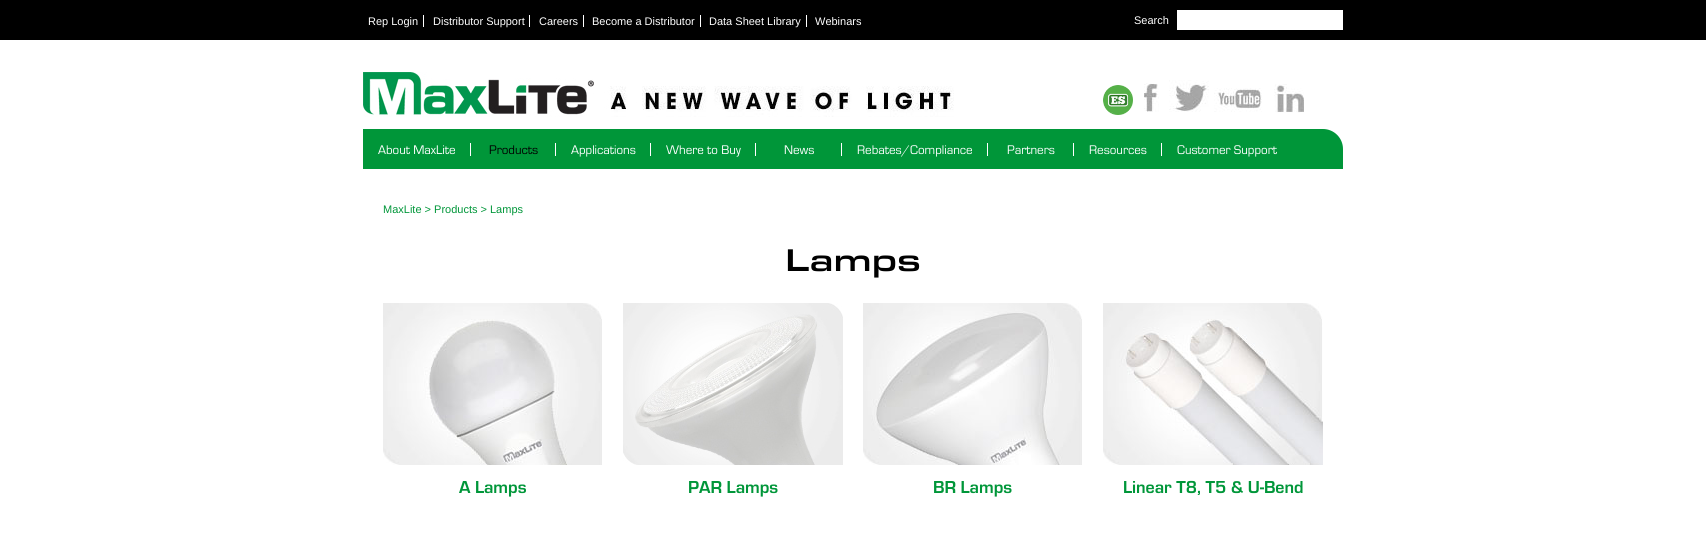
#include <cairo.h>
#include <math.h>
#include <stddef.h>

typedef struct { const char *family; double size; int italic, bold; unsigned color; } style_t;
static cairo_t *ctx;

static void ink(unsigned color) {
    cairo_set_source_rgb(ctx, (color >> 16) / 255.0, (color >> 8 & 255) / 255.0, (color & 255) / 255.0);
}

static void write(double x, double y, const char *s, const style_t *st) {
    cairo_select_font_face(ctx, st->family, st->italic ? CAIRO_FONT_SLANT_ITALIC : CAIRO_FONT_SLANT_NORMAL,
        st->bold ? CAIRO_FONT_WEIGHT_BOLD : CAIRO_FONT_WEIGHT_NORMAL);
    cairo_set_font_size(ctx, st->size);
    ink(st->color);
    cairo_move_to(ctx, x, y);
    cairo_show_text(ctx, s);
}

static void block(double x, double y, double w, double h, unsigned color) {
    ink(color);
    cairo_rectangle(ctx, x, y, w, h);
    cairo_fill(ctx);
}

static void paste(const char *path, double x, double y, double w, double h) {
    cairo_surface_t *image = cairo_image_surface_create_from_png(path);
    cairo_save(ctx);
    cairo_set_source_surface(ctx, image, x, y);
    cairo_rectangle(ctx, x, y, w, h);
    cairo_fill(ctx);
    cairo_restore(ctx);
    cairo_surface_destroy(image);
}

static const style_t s1 = {"Liberation Sans", 11, 0, 0, 0xffffff};
static const style_t s2 = {"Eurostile", 13, 0, 0, 0xffffff};
static const style_t s3 = {"Eurostile", 13, 0, 0, 0x000000};
static const style_t s4 = {"Liberation Sans", 11, 0, 0, 0x009639};
static const style_t s5 = {"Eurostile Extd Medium", 32.5, 0, 0, 0x000000};
static const style_t s6 = {"Eurostile", 18, 0, 1, 0x009639};

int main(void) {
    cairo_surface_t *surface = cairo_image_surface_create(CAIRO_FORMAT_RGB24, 1706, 537);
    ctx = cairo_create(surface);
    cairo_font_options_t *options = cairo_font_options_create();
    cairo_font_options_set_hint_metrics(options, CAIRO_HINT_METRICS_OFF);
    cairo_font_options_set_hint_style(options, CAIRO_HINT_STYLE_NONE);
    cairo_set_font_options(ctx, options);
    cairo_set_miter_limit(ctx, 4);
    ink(0xffffff);
    cairo_paint(ctx);
    block(0, 0, 1706, 40, 0x000000);
    write(368, 25, "Rep Login", &s1);
    block(423, 15, 1, 12, 0xffffff);
    write(433, 25, "Distributor Support", &s1);
    block(529, 15, 1, 12, 0xffffff);
    write(539, 25, "Careers", &s1);
    block(583, 15, 1, 12, 0xffffff);
    write(592, 25, "Become a Distributor", &s1);
    block(700, 15, 1, 12, 0xffffff);
    write(709, 25, "Data Sheet Library", &s1);
    block(806, 15, 1, 12, 0xffffff);
    write(815, 25, "Webinars", &s1);
    write(1134, 24, "Search", &s1);
    block(1177, 10, 166, 20, 0xffffff);
    paste("pic1.png", 363, 72, 591, 45);
    paste("pic2.png", 1103, 85, 30, 30);
    paste("pic3.png", 1144, 83, 15, 29);
    paste("pic4.png", 1169, 80, 40, 32);
    paste("pic5.png", 1214, 88, 48, 24);
    paste("pic6.png", 1274, 84, 30, 29);
    ink(0x009639);
    cairo_new_path(ctx);
    cairo_move_to(ctx, 363, 129);
    cairo_line_to(ctx, 1323, 129);
    cairo_curve_to(ctx, 1334, 129, 1343, 138, 1343, 149);
    cairo_line_to(ctx, 1343, 169);
    cairo_line_to(ctx, 363, 169);
    cairo_close_path(ctx);
    cairo_fill(ctx);
    block(470, 143, 1, 13, 0xffffff);
    write(378, 154, "About MaxLite", &s2);
    block(555, 143, 1, 13, 0xffffff);
    write(489, 154, "Products", &s3);
    block(650, 143, 1, 13, 0xffffff);
    write(571, 154, "Applications", &s2);
    block(755, 143, 1, 13, 0xffffff);
    write(666, 154, "Where to Buy", &s2);
    block(841, 143, 1, 13, 0xffffff);
    write(784, 154, "News", &s2);
    block(987, 143, 1, 13, 0xffffff);
    write(857, 154, "Rebates/Compliance", &s2);
    block(1073, 143, 1, 13, 0xffffff);
    write(1007, 154, "Partners", &s2);
    block(1161, 143, 1, 13, 0xffffff);
    write(1089, 154, "Resources", &s2);
    write(1177, 154, "Customer Support", &s2);
    write(383, 213, "MaxLite > Products > Lamps", &s4);
    write(785, 271, "Lamps", &s5);
    paste("pic7.png", 383, 303, 219, 162);
    write(459, 493, "A Lamps", &s6);
    paste("pic8.png", 623, 303, 220, 162);
    write(688, 493, "PAR Lamps", &s6);
    paste("pic9.png", 863, 303, 219, 162);
    write(933, 493, "BR Lamps", &s6);
    paste("pic10.png", 1103, 303, 220, 162);
    write(1123, 493, "Linear T8, T5 & U-Bend", &s6);
    cairo_surface_write_to_png(surface, "screenshot.png");
    cairo_font_options_destroy(options);
    cairo_destroy(ctx);
    cairo_surface_destroy(surface);
    return 0;
}
